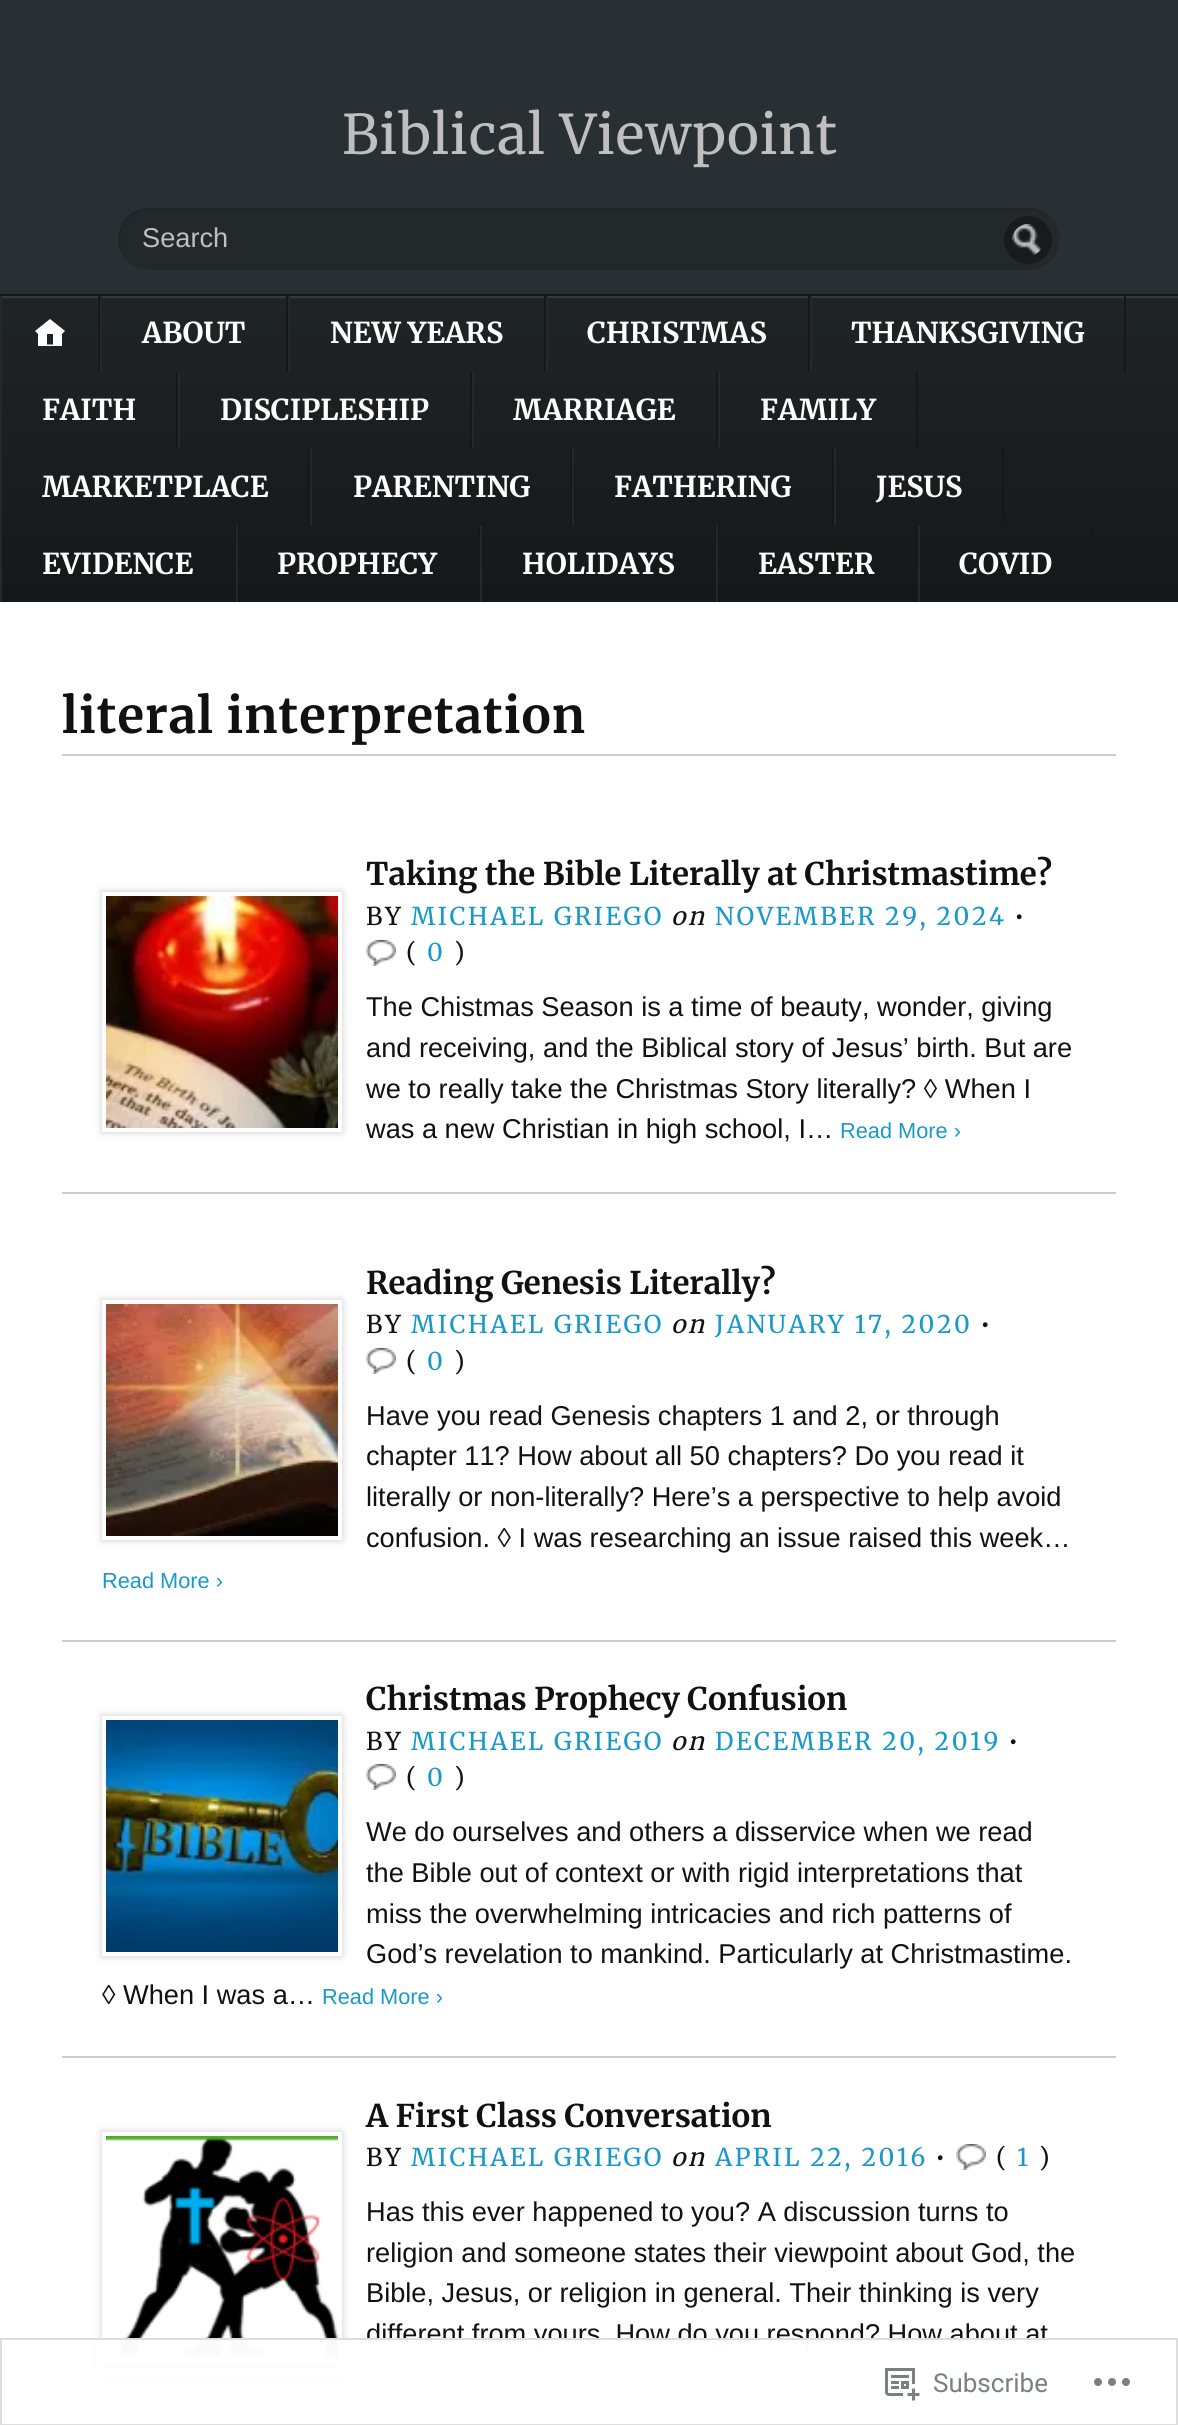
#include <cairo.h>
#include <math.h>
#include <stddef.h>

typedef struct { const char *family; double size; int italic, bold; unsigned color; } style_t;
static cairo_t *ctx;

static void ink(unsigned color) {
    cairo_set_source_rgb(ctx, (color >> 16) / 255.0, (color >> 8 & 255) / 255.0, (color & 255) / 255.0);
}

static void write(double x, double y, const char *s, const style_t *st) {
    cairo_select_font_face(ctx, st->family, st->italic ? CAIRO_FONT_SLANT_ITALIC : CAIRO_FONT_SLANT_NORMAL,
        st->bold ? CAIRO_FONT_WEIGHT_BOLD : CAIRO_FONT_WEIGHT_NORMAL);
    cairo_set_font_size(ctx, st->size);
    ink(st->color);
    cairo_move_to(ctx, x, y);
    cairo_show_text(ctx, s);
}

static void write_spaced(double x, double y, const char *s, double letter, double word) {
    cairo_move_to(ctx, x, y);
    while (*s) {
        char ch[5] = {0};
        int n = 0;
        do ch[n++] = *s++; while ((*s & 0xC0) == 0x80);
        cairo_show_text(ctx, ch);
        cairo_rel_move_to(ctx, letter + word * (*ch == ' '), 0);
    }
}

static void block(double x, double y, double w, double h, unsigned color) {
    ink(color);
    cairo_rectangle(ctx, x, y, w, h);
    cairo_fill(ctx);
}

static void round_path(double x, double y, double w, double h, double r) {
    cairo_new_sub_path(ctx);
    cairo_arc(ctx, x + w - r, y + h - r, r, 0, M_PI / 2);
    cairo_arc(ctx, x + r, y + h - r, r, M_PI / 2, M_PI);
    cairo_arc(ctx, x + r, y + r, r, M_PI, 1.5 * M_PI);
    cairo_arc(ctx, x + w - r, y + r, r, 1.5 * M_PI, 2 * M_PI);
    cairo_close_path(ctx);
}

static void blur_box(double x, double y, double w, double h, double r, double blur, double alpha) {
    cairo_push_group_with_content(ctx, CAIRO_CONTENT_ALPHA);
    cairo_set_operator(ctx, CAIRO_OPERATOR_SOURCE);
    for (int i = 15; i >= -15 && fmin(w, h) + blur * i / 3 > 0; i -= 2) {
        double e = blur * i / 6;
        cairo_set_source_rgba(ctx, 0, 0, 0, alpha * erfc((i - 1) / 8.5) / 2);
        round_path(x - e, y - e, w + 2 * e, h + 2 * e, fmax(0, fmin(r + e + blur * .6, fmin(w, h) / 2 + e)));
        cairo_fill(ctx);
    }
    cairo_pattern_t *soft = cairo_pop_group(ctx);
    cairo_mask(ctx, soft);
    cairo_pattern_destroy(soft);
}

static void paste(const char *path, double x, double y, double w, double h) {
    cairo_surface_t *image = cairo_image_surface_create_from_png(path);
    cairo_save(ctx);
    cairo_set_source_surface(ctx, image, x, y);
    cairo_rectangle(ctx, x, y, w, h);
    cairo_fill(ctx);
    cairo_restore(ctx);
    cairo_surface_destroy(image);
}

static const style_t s1 = {"Liberation Sans", 27.2, 0, 0, 0xbfbfbf};
static const style_t s2 = {"Merriweather", 28.75, 0, 1, 0xffffff};
static const style_t s3 = {"Merriweather", 31.25, 0, 1, 0x111111};
static const style_t s4 = {"Liberation Sans", 27.2, 0, 0, 0x111111};
static const style_t s5 = {"Liberation Sans", 21.75, 0, 0, 0x1899cb};
static const style_t s6 = {"Roboto", 26, 0, 0, 0x7b7f85};

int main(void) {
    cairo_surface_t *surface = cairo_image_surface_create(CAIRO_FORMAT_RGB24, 1178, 2425);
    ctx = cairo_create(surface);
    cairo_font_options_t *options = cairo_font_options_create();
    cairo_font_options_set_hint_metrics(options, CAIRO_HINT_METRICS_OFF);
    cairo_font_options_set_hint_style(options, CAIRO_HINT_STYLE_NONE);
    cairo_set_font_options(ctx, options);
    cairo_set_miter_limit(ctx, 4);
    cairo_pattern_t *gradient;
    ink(0xffffff);
    cairo_paint(ctx);
    block(0, 0, 1178, 294, 0x293033);
    cairo_select_font_face(ctx, "Merriweather", CAIRO_FONT_SLANT_NORMAL, CAIRO_FONT_WEIGHT_NORMAL);
    cairo_set_font_size(ctx, 54.5);
    ink(0xbfbfbf);
    write_spaced(342, 154, "Biblical Viewpoint", 1.1, 0);
    ink(0x23292b);
    round_path(118, 208, 942, 62, 31);
    cairo_fill(ctx);
    cairo_set_source_rgba(ctx, 0, 0, 0, 0.1);
    cairo_new_path(ctx);
    cairo_move_to(ctx, 151, 210);
    cairo_line_to(ctx, 1031, 210);
    cairo_curve_to(ctx, 1039, 210, 1047, 213, 1052, 219);
    cairo_curve_to(ctx, 1047, 213, 1040, 209, 1032, 208);
    cairo_line_to(ctx, 149, 208);
    cairo_curve_to(ctx, 120, 208, 108, 244, 129, 262);
    cairo_curve_to(ctx, 110, 243, 124, 210, 151, 210);
    cairo_close_path(ctx);
    cairo_fill(ctx);
    write(142, 247, "Search", &s1);
    ink(0x171b1c);
    cairo_new_path(ctx);
    cairo_arc(ctx, 1028, 240, 24, 0, 2 * M_PI);
    cairo_fill(ctx);
    paste("pic1.png", 1012, 224, 30, 31);
    gradient = cairo_pattern_create_linear(589, -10, 589, 296);
    cairo_pattern_add_color_stop_rgba(gradient, 0, 0.122, 0.141, 0.149, 1);
    cairo_pattern_add_color_stop_rgba(gradient, 1, 0.082, 0.094, 0.102, 1);
    cairo_set_source(ctx, gradient);
    cairo_pattern_destroy(gradient);
    cairo_rectangle(ctx, 0, 294, 1178, 2);
    cairo_fill(ctx);
    gradient = cairo_pattern_create_linear(589, 296, 589, 602);
    cairo_pattern_add_color_stop_rgba(gradient, 0, 0.122, 0.141, 0.149, 1);
    cairo_pattern_add_color_stop_rgba(gradient, 1, 0.082, 0.094, 0.102, 1);
    cairo_set_source(ctx, gradient);
    cairo_pattern_destroy(gradient);
    cairo_rectangle(ctx, 2, 298, 1176, 304);
    cairo_fill(ctx);
    cairo_save(ctx);
    cairo_rectangle(ctx, 0, 296, 1178, 306);
    cairo_clip(ctx);
    ink(0x353a3c);
    cairo_set_fill_rule(ctx, CAIRO_FILL_RULE_EVEN_ODD);
    cairo_new_path(ctx);
    cairo_move_to(ctx, -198, 98);
    cairo_line_to(ctx, 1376, 98);
    cairo_line_to(ctx, 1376, 800);
    cairo_line_to(ctx, -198, 800);
    cairo_close_path(ctx);
    cairo_move_to(ctx, 0, 298);
    cairo_line_to(ctx, 1178, 298);
    cairo_curve_to(ctx, 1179, 298, 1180, 299, 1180, 300);
    cairo_line_to(ctx, 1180, 606);
    cairo_curve_to(ctx, 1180, 607, 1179, 608, 1178, 608);
    cairo_line_to(ctx, 0, 608);
    cairo_curve_to(ctx, -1, 608, -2, 607, -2, 606);
    cairo_line_to(ctx, -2, 300);
    cairo_curve_to(ctx, -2, 299, -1, 298, 0, 298);
    cairo_close_path(ctx);
    cairo_fill(ctx);
    cairo_restore(ctx);
    block(98, 296, 2, 76, 0x15181a);
    block(0, 296, 2, 306, 0x23292b);
    paste("pic2.png", 35, 319, 30, 27);
    block(286, 296, 2, 76, 0x15181a);
    block(100, 296, 2, 76, 0x23292b);
    write(142, 343, "ABOUT", &s2);
    block(544, 296, 2, 76, 0x15181a);
    block(288, 296, 2, 76, 0x23292b);
    write(330, 343, "NEW YEARS", &s2);
    block(808, 296, 2, 76, 0x15181a);
    block(546, 296, 2, 76, 0x23292b);
    write(587, 343, "CHRISTMAS", &s2);
    block(1124, 296, 2, 76, 0x15181a);
    block(810, 296, 2, 76, 0x23292b);
    write(851, 343, "THANKSGIVING", &s2);
    block(176, 372, 2, 76, 0x15181a);
    write(42, 420, "FAITH", &s2);
    block(470, 372, 2, 76, 0x15181a);
    block(178, 372, 2, 76, 0x23292b);
    write(220, 420, "DISCIPLESHIP", &s2);
    block(716, 372, 2, 76, 0x15181a);
    block(472, 372, 2, 76, 0x23292b);
    write(513, 420, "MARRIAGE", &s2);
    block(916, 372, 2, 76, 0x15181a);
    block(718, 372, 2, 76, 0x23292b);
    write(760, 420, "FAMILY", &s2);
    block(308, 448, 2, 78, 0x15181a);
    write(42, 497, "MARKETPLACE", &s2);
    block(570, 448, 2, 78, 0x15181a);
    block(310, 448, 2, 78, 0x23292b);
    write(353, 497, "PARENTING", &s2);
    block(832, 448, 2, 78, 0x15181a);
    block(572, 448, 2, 78, 0x23292b);
    write(614, 497, "FATHERING", &s2);
    block(1002, 448, 2, 78, 0x15181a);
    block(834, 448, 2, 78, 0x23292b);
    write(876, 497, "JESUS", &s2);
    block(234, 526, 2, 12, 0x15181a);
    write(42, 574, "EVIDENCE", &s2);
    block(478, 526, 2, 12, 0x15181a);
    block(236, 526, 2, 76, 0x23292b);
    write(277, 574, "PROPHECY", &s2);
    block(714, 526, 2, 12, 0x15181a);
    block(480, 526, 2, 76, 0x23292b);
    write(522, 574, "HOLIDAYS", &s2);
    block(916, 526, 2, 12, 0x15181a);
    block(716, 526, 2, 76, 0x23292b);
    write(758, 574, "EASTER", &s2);
    block(1092, 526, 2, 12, 0x15181a);
    block(918, 526, 2, 76, 0x23292b);
    write(959, 574, "COVID", &s2);
    block(62, 754, 1054, 2, 0xcccccc);
    cairo_set_font_size(ctx, 49);
    ink(0x111111);
    write_spaced(62, 733, "literal interpretation", 1, 0);
    block(62, 1192, 1054, 2, 0xcccccc);
    cairo_save(ctx);
    cairo_set_fill_rule(ctx, CAIRO_FILL_RULE_EVEN_ODD);
    cairo_new_path(ctx);
    cairo_move_to(ctx, 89, 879);
    cairo_line_to(ctx, 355, 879);
    cairo_line_to(ctx, 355, 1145);
    cairo_line_to(ctx, 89, 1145);
    cairo_close_path(ctx);
    cairo_move_to(ctx, 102, 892);
    cairo_line_to(ctx, 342, 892);
    cairo_line_to(ctx, 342, 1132);
    cairo_line_to(ctx, 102, 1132);
    cairo_close_path(ctx);
    cairo_clip(ctx);
    ink(0x000000);
    blur_box(102, 892, 240, 240, 0, 4, 0.2);
    cairo_restore(ctx);
    paste("pic3.png", 106, 896, 232, 232);
    write(366, 885, "Taking the Bible Literally at Christmastime?", &s3);
    cairo_select_font_face(ctx, "Merriweather", CAIRO_FONT_SLANT_NORMAL, CAIRO_FONT_WEIGHT_NORMAL);
    cairo_set_font_size(ctx, 24.5);
    write_spaced(366, 925, "BY", 2.5, 0);
    ink(0x1899cb);
    write_spaced(411, 925, "MICHAEL GRIEGO", 2.5, 0);
    cairo_select_font_face(ctx, "Merriweather", CAIRO_FONT_SLANT_ITALIC, CAIRO_FONT_WEIGHT_NORMAL);
    ink(0x111111);
    write_spaced(671, 925, "on", 2.5, 0);
    cairo_select_font_face(ctx, "Merriweather", CAIRO_FONT_SLANT_NORMAL, CAIRO_FONT_WEIGHT_NORMAL);
    ink(0x1899cb);
    write_spaced(715, 925, "NOVEMBER 29, 2024", 2.5, 0);
    ink(0x111111);
    write_spaced(1014, 925, "•", 2.5, 0);
    paste("pic4.png", 366, 940, 30, 26);
    write_spaced(406, 961, "(", 2.5, 0);
    ink(0x1899cb);
    write_spaced(427, 961, "0", 2.5, 0);
    ink(0x111111);
    write_spaced(454, 961, ")", 2.5, 0);
    write(366, 1016, "The Chistmas Season is a time of beauty, wonder, giving", &s4);
    write(366, 1057, "and receiving, and the Biblical story of Jesus’ birth. But are", &s4);
    write(366, 1098, "we to really take the Christmas Story literally? ◊ When I", &s4);
    write(366, 1138, "was a new Christian in high school, I…", &s4);
    write(840, 1138, "Read More ›", &s5);
    block(62, 1640, 1054, 2, 0xcccccc);
    write(366, 1294, "Reading Genesis Literally?", &s3);
    cairo_select_font_face(ctx, "Merriweather", CAIRO_FONT_SLANT_NORMAL, CAIRO_FONT_WEIGHT_NORMAL);
    cairo_set_font_size(ctx, 24.5);
    write_spaced(366, 1333, "BY", 2.5, 0);
    ink(0x1899cb);
    write_spaced(411, 1333, "MICHAEL GRIEGO", 2.5, 0);
    cairo_select_font_face(ctx, "Merriweather", CAIRO_FONT_SLANT_ITALIC, CAIRO_FONT_WEIGHT_NORMAL);
    ink(0x111111);
    write_spaced(671, 1333, "on", 2.5, 0);
    cairo_select_font_face(ctx, "Merriweather", CAIRO_FONT_SLANT_NORMAL, CAIRO_FONT_WEIGHT_NORMAL);
    ink(0x1899cb);
    write_spaced(715, 1333, "JANUARY 17, 2020", 2.5, 0);
    ink(0x111111);
    write_spaced(980, 1333, "•", 2.5, 0);
    paste("pic4.png", 366, 1348, 30, 26);
    write_spaced(406, 1370, "(", 2.5, 0);
    ink(0x1899cb);
    write_spaced(427, 1370, "0", 2.5, 0);
    ink(0x111111);
    write_spaced(454, 1370, ")", 2.5, 0);
    write(366, 1425, "Have you read Genesis chapters 1 and 2, or through", &s4);
    write(366, 1465, "chapter 11? How about all 50 chapters? Do you read it", &s4);
    write(366, 1506, "literally or non-literally? Here’s a perspective to help avoid", &s4);
    write(366, 1547, "confusion. ◊ I was researching an issue raised this week…", &s4);
    write(102, 1588, "Read More ›", &s5);
    cairo_save(ctx);
    cairo_set_fill_rule(ctx, CAIRO_FILL_RULE_EVEN_ODD);
    cairo_new_path(ctx);
    cairo_move_to(ctx, 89, 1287);
    cairo_line_to(ctx, 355, 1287);
    cairo_line_to(ctx, 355, 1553);
    cairo_line_to(ctx, 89, 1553);
    cairo_close_path(ctx);
    cairo_move_to(ctx, 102, 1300);
    cairo_line_to(ctx, 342, 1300);
    cairo_line_to(ctx, 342, 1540);
    cairo_line_to(ctx, 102, 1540);
    cairo_close_path(ctx);
    cairo_clip(ctx);
    ink(0x000000);
    blur_box(102, 1300, 240, 240, 0, 4, 0.2);
    cairo_restore(ctx);
    paste("pic5.png", 106, 1304, 232, 232);
    block(62, 2056, 1054, 2, 0xcccccc);
    write(366, 1710, "Christmas Prophecy Confusion", &s3);
    cairo_select_font_face(ctx, "Merriweather", CAIRO_FONT_SLANT_NORMAL, CAIRO_FONT_WEIGHT_NORMAL);
    cairo_set_font_size(ctx, 24.5);
    write_spaced(366, 1750, "BY", 2.5, 0);
    ink(0x1899cb);
    write_spaced(411, 1750, "MICHAEL GRIEGO", 2.5, 0);
    cairo_select_font_face(ctx, "Merriweather", CAIRO_FONT_SLANT_ITALIC, CAIRO_FONT_WEIGHT_NORMAL);
    ink(0x111111);
    write_spaced(671, 1750, "on", 2.5, 0);
    cairo_select_font_face(ctx, "Merriweather", CAIRO_FONT_SLANT_NORMAL, CAIRO_FONT_WEIGHT_NORMAL);
    ink(0x1899cb);
    write_spaced(715, 1750, "DECEMBER 20, 2019", 2.5, 0);
    ink(0x111111);
    write_spaced(1008, 1750, "•", 2.5, 0);
    paste("pic4.png", 366, 1764, 30, 26);
    write_spaced(406, 1786, "(", 2.5, 0);
    ink(0x1899cb);
    write_spaced(427, 1786, "0", 2.5, 0);
    ink(0x111111);
    write_spaced(454, 1786, ")", 2.5, 0);
    write(366, 1841, "We do ourselves and others a disservice when we read", &s4);
    write(366, 1882, "the Bible out of context or with rigid interpretations that", &s4);
    write(366, 1923, "miss the overwhelming intricacies and rich patterns of", &s4);
    write(366, 1963, "God’s revelation to mankind. Particularly at Christmastime.", &s4);
    write(102, 2004, "◊ When I was a…", &s4);
    write(322, 2004, "Read More ›", &s5);
    cairo_save(ctx);
    cairo_set_fill_rule(ctx, CAIRO_FILL_RULE_EVEN_ODD);
    cairo_new_path(ctx);
    cairo_move_to(ctx, 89, 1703);
    cairo_line_to(ctx, 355, 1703);
    cairo_line_to(ctx, 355, 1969);
    cairo_line_to(ctx, 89, 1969);
    cairo_close_path(ctx);
    cairo_move_to(ctx, 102, 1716);
    cairo_line_to(ctx, 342, 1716);
    cairo_line_to(ctx, 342, 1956);
    cairo_line_to(ctx, 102, 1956);
    cairo_close_path(ctx);
    cairo_clip(ctx);
    ink(0x000000);
    blur_box(102, 1716, 240, 240, 0, 4, 0.2);
    cairo_restore(ctx);
    paste("pic6.png", 106, 1720, 232, 232);
    cairo_save(ctx);
    cairo_set_fill_rule(ctx, CAIRO_FILL_RULE_EVEN_ODD);
    cairo_new_path(ctx);
    cairo_move_to(ctx, 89, 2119);
    cairo_line_to(ctx, 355, 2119);
    cairo_line_to(ctx, 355, 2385);
    cairo_line_to(ctx, 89, 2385);
    cairo_close_path(ctx);
    cairo_move_to(ctx, 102, 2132);
    cairo_line_to(ctx, 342, 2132);
    cairo_line_to(ctx, 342, 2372);
    cairo_line_to(ctx, 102, 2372);
    cairo_close_path(ctx);
    cairo_clip(ctx);
    ink(0x000000);
    blur_box(102, 2132, 240, 240, 0, 4, 0.2);
    cairo_restore(ctx);
    paste("pic7.png", 106, 2136, 232, 232);
    write(366, 2127, "A First Class Conversation", &s3);
    cairo_select_font_face(ctx, "Merriweather", CAIRO_FONT_SLANT_NORMAL, CAIRO_FONT_WEIGHT_NORMAL);
    cairo_set_font_size(ctx, 24.5);
    write_spaced(366, 2166, "BY", 2.5, 0);
    ink(0x1899cb);
    write_spaced(411, 2166, "MICHAEL GRIEGO", 2.5, 0);
    cairo_select_font_face(ctx, "Merriweather", CAIRO_FONT_SLANT_ITALIC, CAIRO_FONT_WEIGHT_NORMAL);
    ink(0x111111);
    write_spaced(671, 2166, "on", 2.5, 0);
    cairo_select_font_face(ctx, "Merriweather", CAIRO_FONT_SLANT_NORMAL, CAIRO_FONT_WEIGHT_NORMAL);
    ink(0x1899cb);
    write_spaced(715, 2166, "APRIL 22, 2016", 2.5, 0);
    ink(0x111111);
    write_spaced(935, 2166, "•", 2.5, 0);
    paste("pic4.png", 956, 2144, 30, 26);
    write_spaced(996, 2166, "(", 2.5, 0);
    ink(0x1899cb);
    write_spaced(1017, 2166, "1", 2.5, 0);
    ink(0x111111);
    write_spaced(1039, 2166, ")", 2.5, 0);
    write(366, 2221, "Has this ever happened to you? A discussion turns to", &s4);
    write(366, 2262, "religion and someone states their viewpoint about God, the", &s4);
    write(366, 2302, "Bible, Jesus, or religion in general. Their thinking is very", &s4);
    write(366, 2343, "different from yours. How do you respond? How about at", &s4);
    cairo_set_source_rgba(ctx, 1, 1, 1, 0.98);
    cairo_rectangle(ctx, 96, 2338, 952, 40);
    cairo_fill(ctx);
    cairo_rectangle(ctx, 1, 2339, 1176, 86);
    cairo_set_source_rgba(ctx, 0.863, 0.863, 0.871, 0.98);
    cairo_stroke(ctx);
    paste("pic8.png", 885, 2368, 35, 33);
    write(933, 2392, "Subscribe", &s6);
    paste("pic9.png", 1094, 2378, 36, 8);
    cairo_surface_write_to_png(surface, "screenshot.png");
    cairo_font_options_destroy(options);
    cairo_destroy(ctx);
    cairo_surface_destroy(surface);
    return 0;
}
